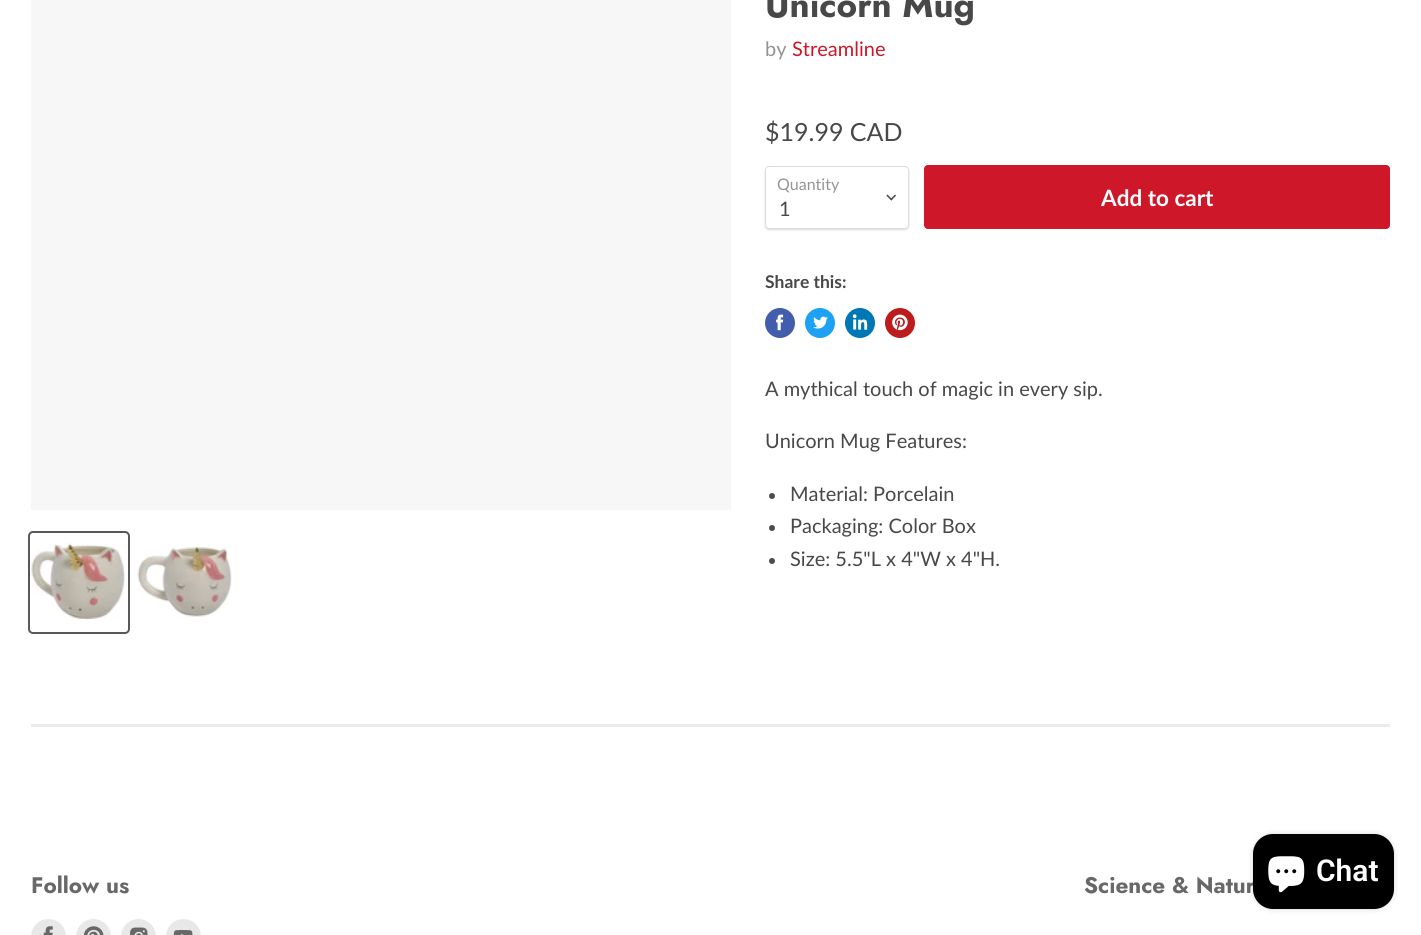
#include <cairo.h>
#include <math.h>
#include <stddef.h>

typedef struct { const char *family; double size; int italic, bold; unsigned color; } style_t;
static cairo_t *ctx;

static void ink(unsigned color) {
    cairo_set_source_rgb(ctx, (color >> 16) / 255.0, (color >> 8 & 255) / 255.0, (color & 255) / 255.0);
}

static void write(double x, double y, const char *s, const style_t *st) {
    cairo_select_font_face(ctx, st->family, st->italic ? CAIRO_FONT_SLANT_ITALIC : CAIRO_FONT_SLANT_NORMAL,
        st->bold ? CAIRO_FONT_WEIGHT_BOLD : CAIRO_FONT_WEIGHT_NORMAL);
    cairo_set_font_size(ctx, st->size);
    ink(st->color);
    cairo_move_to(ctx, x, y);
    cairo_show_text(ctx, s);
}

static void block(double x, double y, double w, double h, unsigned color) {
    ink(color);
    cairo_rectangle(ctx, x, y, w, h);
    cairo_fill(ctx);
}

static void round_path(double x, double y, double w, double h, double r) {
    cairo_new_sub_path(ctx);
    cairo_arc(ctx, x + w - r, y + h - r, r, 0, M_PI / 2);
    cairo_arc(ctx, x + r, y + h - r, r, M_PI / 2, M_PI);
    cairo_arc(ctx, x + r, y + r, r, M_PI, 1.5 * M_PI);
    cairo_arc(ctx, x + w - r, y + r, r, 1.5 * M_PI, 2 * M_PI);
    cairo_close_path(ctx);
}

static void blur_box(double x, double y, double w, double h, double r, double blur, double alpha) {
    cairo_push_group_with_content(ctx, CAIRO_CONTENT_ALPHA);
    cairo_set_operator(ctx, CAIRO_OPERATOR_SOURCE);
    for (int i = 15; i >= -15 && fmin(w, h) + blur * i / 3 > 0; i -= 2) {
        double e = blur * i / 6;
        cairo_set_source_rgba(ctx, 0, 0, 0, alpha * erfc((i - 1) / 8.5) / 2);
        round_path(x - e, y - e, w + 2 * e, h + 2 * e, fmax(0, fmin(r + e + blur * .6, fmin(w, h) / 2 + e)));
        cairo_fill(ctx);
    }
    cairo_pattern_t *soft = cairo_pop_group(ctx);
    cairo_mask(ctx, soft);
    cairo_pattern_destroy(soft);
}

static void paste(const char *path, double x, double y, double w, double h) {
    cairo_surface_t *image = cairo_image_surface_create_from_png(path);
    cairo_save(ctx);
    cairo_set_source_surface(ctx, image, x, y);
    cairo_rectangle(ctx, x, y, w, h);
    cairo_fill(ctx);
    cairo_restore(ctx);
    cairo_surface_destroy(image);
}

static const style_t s1 = {"Jost", 35, 0, 1, 0x484848};
static const style_t s2 = {"Lato", 20, 0, 0, 0x949494};
static const style_t s3 = {"Lato", 20, 0, 0, 0xce1728};
static const style_t s4 = {"Lato", 25, 0, 0, 0x484848};
static const style_t s5 = {"Lato", 16, 0, 0, 0x949494};
static const style_t s6 = {"Lato", 20, 0, 0, 0x484848};
static const style_t s7 = {"Lato", 22.5, 0, 1, 0xffffff};
static const style_t s8 = {"Lato", 17.5, 0, 1, 0x484848};
static const style_t s9 = {"Jost", 22.5, 0, 1, 0x686868};
static const style_t s10 = {"Roboto SemiBold", 30, 0, 0, 0xffffff};

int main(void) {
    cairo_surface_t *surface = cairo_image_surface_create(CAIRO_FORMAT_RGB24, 1421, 935);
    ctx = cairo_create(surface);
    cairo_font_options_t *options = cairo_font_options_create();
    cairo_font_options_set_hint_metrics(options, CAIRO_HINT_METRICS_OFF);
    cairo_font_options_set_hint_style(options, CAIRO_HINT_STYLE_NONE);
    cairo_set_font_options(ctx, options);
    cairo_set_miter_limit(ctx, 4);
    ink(0xffffff);
    cairo_paint(ctx);
    block(31, 0, 700, 510, 0xf7f7f7);
    round_path(29, 532, 100, 101, 4);
    ink(0x585858);
    cairo_stroke(ctx);
    paste("pic1.png", 31, 543, 94, 77);
    paste("pic2.png", 137, 545, 95, 72);
    write(765, 17, "Unicorn Mug", &s1);
    write(765, 56, "by", &s2);
    write(792, 56, "Streamline", &s3);
    write(765, 141, "$19.99 CAD", &s4);
    ink(0x000000);
    blur_box(765, 168, 144, 62, 4, 1, 0.15);
    ink(0xffffff);
    round_path(765.5, 166.5, 143, 62, 3.5);
    cairo_fill_preserve(ctx);
    ink(0xdddddd);
    cairo_set_line_width(ctx, 1);
    cairo_stroke(ctx);
    write(777, 190, "Quantity", &s5);
    paste("pic3.png", 886, 194, 10, 7);
    write(779, 216, "1", &s6);
    ink(0xce1728);
    round_path(924.5, 165.5, 465, 63, 3.5);
    cairo_fill_preserve(ctx);
    cairo_stroke(ctx);
    write(1101, 206, "Add to cart", &s7);
    write(765, 288, "Share this:", &s8);
    ink(0x425dab);
    cairo_new_path(ctx);
    cairo_arc(ctx, 780, 323, 15, 0, 2 * M_PI);
    cairo_fill(ctx);
    paste("pic4.png", 776, 314, 8, 17);
    ink(0x1da1f2);
    cairo_arc(ctx, 820, 323, 15, 0, 2 * M_PI);
    cairo_fill(ctx);
    paste("pic5.png", 813, 316, 15, 13);
    ink(0x0077b5);
    cairo_arc(ctx, 860, 323, 15, 0, 2 * M_PI);
    cairo_fill(ctx);
    paste("pic6.png", 852, 314, 16, 16);
    ink(0xbd1c1c);
    cairo_arc(ctx, 900, 323, 15, 0, 2 * M_PI);
    cairo_fill(ctx);
    paste("pic7.png", 892, 314, 16, 17);
    write(765, 396, "A mythical touch of magic in every sip.", &s6);
    write(765, 448, "Unicorn Mug Features:", &s6);
    ink(0x4d4d4d);
    cairo_new_path(ctx);
    cairo_arc(ctx, 772, 496, 3, 0, 2 * M_PI);
    cairo_fill(ctx);
    write(790, 501, "Material: Porcelain", &s6);
    ink(0x4d4d4d);
    cairo_new_path(ctx);
    cairo_arc(ctx, 772, 528, 3, 0, 2 * M_PI);
    cairo_fill(ctx);
    write(790, 533, "Packaging: Color Box", &s6);
    ink(0x4d4d4d);
    cairo_new_path(ctx);
    cairo_arc(ctx, 772, 561, 3, 0, 2 * M_PI);
    cairo_fill(ctx);
    write(790, 566, "Size: 5.5\"L x 4\"W x 4\"H.", &s6);
    cairo_set_source_rgba(ctx, 0.498, 0.498, 0.498, 0.16);
    cairo_rectangle(ctx, 31, 724, 1359, 3);
    cairo_fill(ctx);
    ink(0x000000);
    blur_box(1253, 834, 141, 75, 20, 3, 0.15);
    write(1084, 893, "Science & Natur", &s9);
    ink(0x000000);
    round_path(1253, 834, 141, 75, 20);
    cairo_fill(ctx);
    paste("pic8.png", 1268, 856, 37, 37);
    write(1316, 881, "Chat", &s10);
    write(31, 893, "Follow us", &s9);
    ink(0xe8e8e8);
    round_path(31, 919, 35, 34, 17.5);
    cairo_fill(ctx);
    paste("pic9.png", 43, 926, 10, 9);
    round_path(76, 919, 35, 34, 17.5);
    cairo_fill(ctx);
    paste("pic10.png", 83, 926, 21, 9);
    round_path(121, 919, 35, 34, 17.5);
    cairo_fill(ctx);
    paste("pic11.png", 130, 927, 18, 8);
    round_path(166, 919, 35, 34, 17.5);
    cairo_fill(ctx);
    paste("pic12.png", 173, 930, 20, 5);
    cairo_surface_write_to_png(surface, "screenshot.png");
    cairo_font_options_destroy(options);
    cairo_destroy(ctx);
    cairo_surface_destroy(surface);
    return 0;
}
